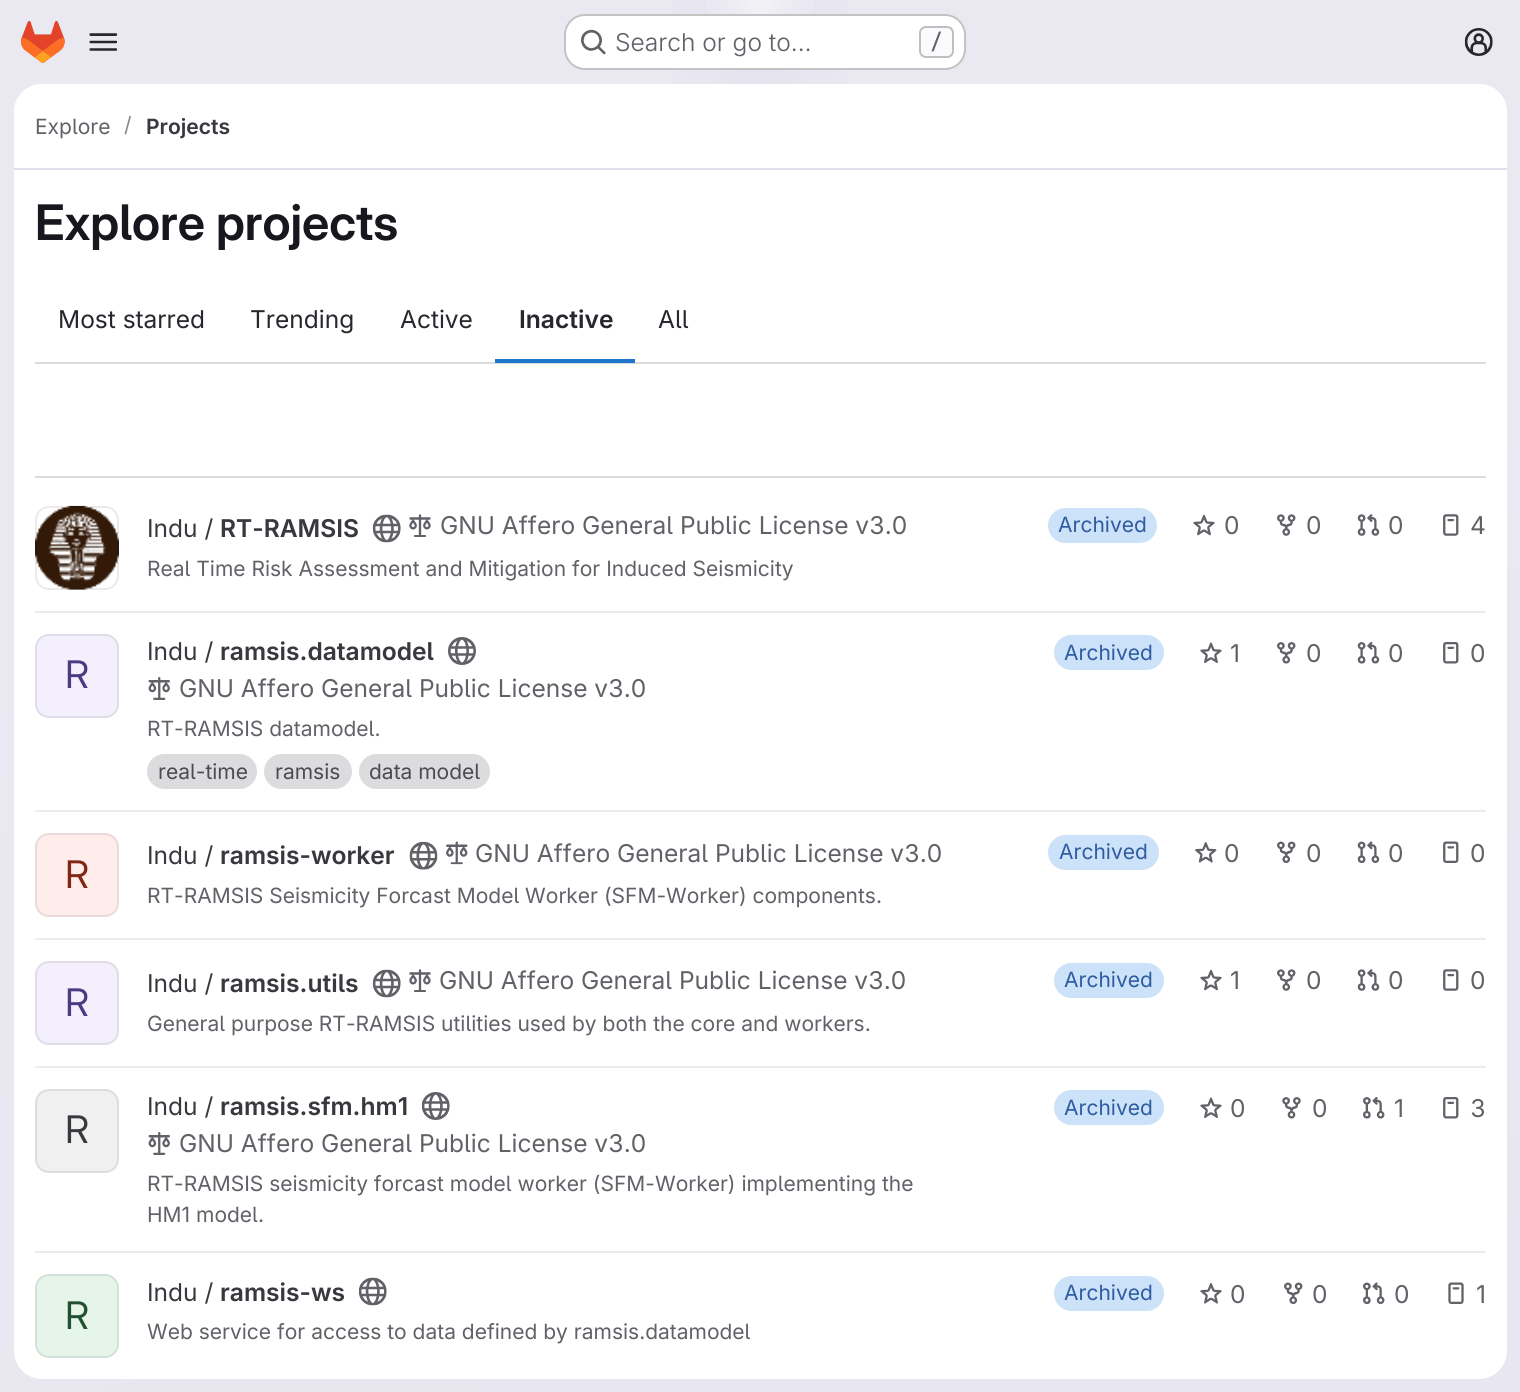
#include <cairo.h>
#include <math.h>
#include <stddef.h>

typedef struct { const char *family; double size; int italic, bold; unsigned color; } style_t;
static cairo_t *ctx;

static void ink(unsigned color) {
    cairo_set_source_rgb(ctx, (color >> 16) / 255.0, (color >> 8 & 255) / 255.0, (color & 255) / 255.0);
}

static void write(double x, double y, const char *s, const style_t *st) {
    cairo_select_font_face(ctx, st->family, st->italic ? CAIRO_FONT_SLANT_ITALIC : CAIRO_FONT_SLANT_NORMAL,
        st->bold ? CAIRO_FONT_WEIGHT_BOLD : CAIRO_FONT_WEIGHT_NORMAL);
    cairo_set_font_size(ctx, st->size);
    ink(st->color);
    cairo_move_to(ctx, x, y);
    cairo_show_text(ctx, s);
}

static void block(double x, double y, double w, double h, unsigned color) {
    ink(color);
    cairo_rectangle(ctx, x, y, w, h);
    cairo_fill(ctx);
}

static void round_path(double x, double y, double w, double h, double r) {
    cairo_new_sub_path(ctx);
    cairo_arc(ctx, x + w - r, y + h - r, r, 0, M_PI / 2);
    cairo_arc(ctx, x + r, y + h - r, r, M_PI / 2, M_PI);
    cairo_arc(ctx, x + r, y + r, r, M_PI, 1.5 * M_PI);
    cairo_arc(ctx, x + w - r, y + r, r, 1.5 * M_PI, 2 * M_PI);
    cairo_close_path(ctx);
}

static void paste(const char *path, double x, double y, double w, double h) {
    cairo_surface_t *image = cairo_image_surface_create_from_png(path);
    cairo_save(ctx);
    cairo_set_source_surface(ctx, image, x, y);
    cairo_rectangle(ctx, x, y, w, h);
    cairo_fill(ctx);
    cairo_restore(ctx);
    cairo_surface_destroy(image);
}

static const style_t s1 = {"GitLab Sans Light", 24.5, 0, 0, 0x626168};
static const style_t s2 = {"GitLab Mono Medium", 21, 0, 0, 0x626168};
static const style_t s3 = {"GitLab Sans", 21, 0, 0, 0x626168};
static const style_t s4 = {"GitLab Sans", 21, 0, 0, 0x89888d};
static const style_t s5 = {"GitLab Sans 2 SemiBold", 21, 0, 0, 0x3a383f};
static const style_t s6 = {"GitLab Sans SemiBold", 49, 0, 0, 0x18171d};
static const style_t s7 = {"GitLab Sans", 24.5, 0, 0, 0x28272d};
static const style_t s8 = {"GitLab Sans 2 SemiBold", 24.5, 0, 0, 0x28272d};
static const style_t s9 = {"GitLab Sans", 24.5, 0, 0, 0x3a383f};
static const style_t s10 = {"GitLab Sans 2 SemiBold", 24.5, 0, 0, 0x3a383f};
static const style_t s11 = {"GitLab Sans", 24.5, 0, 0, 0x626168};
static const style_t s12 = {"GitLab Sans", 21, 0, 0, 0x2f5ca0};
static const style_t s13 = {"GitLab Sans", 21, 0, 0, 0x4c4b51};
static const style_t s14 = {"GitLab Sans 2", 38, 0, 0, 0x493c83};
static const style_t s15 = {"GitLab Sans 2", 38, 0, 0, 0x812713};
static const style_t s16 = {"GitLab Sans 2", 38, 0, 0, 0x3a383f};
static const style_t s17 = {"GitLab Sans 2", 38, 0, 0, 0x225131};

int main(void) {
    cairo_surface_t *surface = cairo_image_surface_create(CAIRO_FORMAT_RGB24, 1520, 1392);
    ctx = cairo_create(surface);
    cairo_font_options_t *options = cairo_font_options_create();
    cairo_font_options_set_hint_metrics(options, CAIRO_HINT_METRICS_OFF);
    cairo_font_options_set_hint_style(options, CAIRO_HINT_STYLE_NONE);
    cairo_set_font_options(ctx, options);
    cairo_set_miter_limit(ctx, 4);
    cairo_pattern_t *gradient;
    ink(0xffffff);
    cairo_paint(ctx);
    gradient = cairo_pattern_create_linear(902, 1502, 618, -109);
    cairo_pattern_add_color_stop_rgba(gradient, 0, 0.91, 0.902, 0.941, 1);
    cairo_pattern_add_color_stop_rgba(gradient, 0.7, 0.918, 0.914, 0.949, 1);
    cairo_set_source(ctx, gradient);
    cairo_pattern_destroy(gradient);
    cairo_rectangle(ctx, 0, 0, 1520, 1392);
    cairo_fill(ctx);
    gradient = cairo_pattern_create_radial(0, 0, 0, 0, 0, 1);
    cairo_pattern_set_matrix(gradient, &(cairo_matrix_t){1.0 / 760, 0, 0, 1.0 / 1393, -1.0 * 760 / 760, -1.0 * 0 / 1393});
    cairo_pattern_add_color_stop_rgba(gradient, 0, 0.894, 0.886, 0.929, 1);
    cairo_pattern_add_color_stop_rgba(gradient, 0.16, 0.894, 0.886, 0.929, 0);
    cairo_set_source(ctx, gradient);
    cairo_pattern_destroy(gradient);
    cairo_rectangle(ctx, 672, 0, 176, 84);
    cairo_fill(ctx);
    gradient = cairo_pattern_create_radial(0, 0, 0, 0, 0, 1);
    cairo_pattern_set_matrix(gradient, &(cairo_matrix_t){1.0 / 760, 0, 0, 1.0 / 1393, -1.0 * 760 / 760, -1.0 * 0 / 1393});
    cairo_pattern_add_color_stop_rgba(gradient, 0, 0.894, 0.886, 0.925, 1);
    cairo_pattern_add_color_stop_rgba(gradient, 0.12, 0.894, 0.886, 0.925, 0);
    cairo_set_source(ctx, gradient);
    cairo_pattern_destroy(gradient);
    cairo_rectangle(ctx, 718, 0, 84, 72);
    cairo_fill(ctx);
    gradient = cairo_pattern_create_radial(760, 0, 0, 760, 0, 1587);
    cairo_pattern_add_color_stop_rgba(gradient, 0, 1, 1, 1, 0.6);
    cairo_pattern_add_color_stop_rgba(gradient, 0.04, 1, 1, 1, 0);
    cairo_set_source(ctx, gradient);
    cairo_pattern_destroy(gradient);
    cairo_rectangle(ctx, 706, 0, 108, 14);
    cairo_fill(ctx);
    paste("pic1.png", 21, 21, 44, 42);
    paste("pic2.png", 89, 33, 29, 18);
    ink(0xffffff);
    round_path(564, 14, 402, 56, 21);
    cairo_fill(ctx);
    round_path(565, 15, 400, 54, 20);
    cairo_set_source_rgba(ctx, 0.02, 0.02, 0.024, 0.24);
    cairo_stroke(ctx);
    paste("pic3.png", 581, 29, 25, 26);
    write(615, 51, "Search or go to…", &s1);
    ink(0xfbfafd);
    round_path(920, 27, 33, 30, 6);
    cairo_fill_preserve(ctx);
    ink(0xbfbfc3);
    cairo_stroke(ctx);
    write(930, 49, "/", &s2);
    paste("pic4.png", 1464, 28, 29, 28);
    ink(0xffffff);
    round_path(14, 84, 1493, 1295, 28);
    cairo_fill(ctx);
    cairo_new_path(ctx);
    cairo_move_to(ctx, 42, 84);
    cairo_line_to(ctx, 1479, 84);
    cairo_curve_to(ctx, 1494.5, 84, 1507, 96.5, 1507, 112);
    cairo_line_to(ctx, 1507, 170);
    cairo_line_to(ctx, 14, 170);
    cairo_line_to(ctx, 14, 112);
    cairo_curve_to(ctx, 14, 96.5, 26.5, 84, 42, 84);
    cairo_close_path(ctx);
    cairo_fill(ctx);
    block(14, 168, 1493, 2, 0xe1dfec);
    write(35, 134, "Explore", &s3);
    write(124, 132, "/", &s4);
    write(146, 134, "Projects", &s5);
    write(35, 240, "Explore projects", &s6);
    write(58, 328, "Most starred", &s7);
    write(250, 328, "Trending", &s7);
    write(400, 328, "Active", &s7);
    write(519, 328, "Inactive", &s8);
    block(35, 362, 1451, 2, 0xdcdcde);
    block(495, 359, 140, 4, 0x1f75cb);
    write(658, 328, "All", &s7);
    block(35, 476, 1451, 2, 0xdcdcde);
    block(35, 611, 1451, 2, 0xececef);
    paste("pic5.png", 35, 505, 84, 85);
    round_path(36, 507, 82, 82, 13);
    cairo_set_source_rgba(ctx, 0.02, 0.02, 0.024, 0.08);
    cairo_stroke(ctx);
    write(147, 537, "Indu /", &s9);
    write(220, 537, "RT-RAMSIS", &s10);
    paste("pic6.png", 372, 514, 29, 29);
    paste("pic7.png", 409, 514, 22, 23);
    write(440, 534, "GNU Affero General Public License v3.0", &s11);
    write(147, 576, "Real Time Risk Assessment and Mitigation for Induced Seismicity", &s3);
    ink(0xcbe2f9);
    round_path(1048, 508, 109, 35, 17.5);
    cairo_fill(ctx);
    write(1058, 532, "Archived", &s12);
    paste("pic8.png", 1193, 514, 22, 22);
    write(1224, 534, "0", &s11);
    paste("pic9.png", 1277, 514, 19, 22);
    write(1306, 534, "0", &s11);
    paste("pic10.png", 1357, 514, 23, 22);
    write(1388, 534, "0", &s11);
    paste("pic11.png", 1443, 514, 16, 22);
    write(1470, 534, "4", &s11);
    block(35, 810, 1451, 2, 0xececef);
    write(147, 660, "Indu /", &s9);
    write(220, 660, "ramsis.datamodel", &s10);
    paste("pic12.png", 448, 637, 28, 28);
    paste("pic13.png", 148, 677, 22, 23);
    write(179, 697, "GNU Affero General Public License v3.0", &s11);
    write(147, 736, "RT-RAMSIS datamodel.", &s3);
    ink(0xdcdcde);
    round_path(147, 754, 110, 35, 17.5);
    cairo_fill(ctx);
    write(158, 779, "real-time", &s13);
    ink(0xdcdcde);
    round_path(264, 754, 88, 35, 17.5);
    cairo_fill(ctx);
    write(275, 779, "ramsis", &s13);
    ink(0xdcdcde);
    round_path(359, 754, 131, 35, 17.5);
    cairo_fill(ctx);
    write(369, 779, "data model", &s13);
    ink(0xcbe2f9);
    round_path(1054, 635, 110, 35, 17.5);
    cairo_fill(ctx);
    write(1064, 660, "Archived", &s12);
    paste("pic14.png", 1200, 642, 22, 21);
    write(1230, 662, "1", &s11);
    paste("pic15.png", 1277, 642, 19, 22);
    write(1306, 662, "0", &s11);
    paste("pic16.png", 1357, 642, 23, 22);
    write(1388, 662, "0", &s11);
    paste("pic17.png", 1443, 642, 16, 22);
    write(1470, 662, "0", &s11);
    ink(0xf3effc);
    round_path(35, 634, 84, 84, 14);
    cairo_fill(ctx);
    round_path(36, 635, 82, 82, 13);
    cairo_set_source_rgba(ctx, 0.02, 0.02, 0.024, 0.08);
    cairo_stroke(ctx);
    write(65, 688, "R", &s14);
    block(35, 938, 1451, 2, 0xececef);
    write(147, 864, "Indu /", &s9);
    write(220, 864, "ramsis-worker", &s10);
    paste("pic18.png", 409, 841, 29, 29);
    paste("pic19.png", 446, 841, 22, 24);
    write(475, 862, "GNU Affero General Public License v3.0", &s11);
    write(147, 903, "RT-RAMSIS Seismicity Forcast Model Worker (SFM-Worker) components.", &s3);
    ink(0xcbe2f9);
    round_path(1048, 835, 111, 35, 17.5);
    cairo_fill(ctx);
    write(1059, 859, "Archived", &s12);
    paste("pic20.png", 1195, 842, 22, 21);
    write(1224, 862, "0", &s11);
    paste("pic21.png", 1277, 841, 19, 22);
    write(1306, 862, "0", &s11);
    paste("pic22.png", 1357, 841, 23, 22);
    write(1388, 862, "0", &s11);
    paste("pic23.png", 1443, 841, 16, 22);
    write(1470, 862, "0", &s11);
    ink(0xfeedeb);
    round_path(35, 833, 84, 84, 14);
    cairo_fill(ctx);
    round_path(36, 834, 82, 82, 13);
    cairo_set_source_rgba(ctx, 0.02, 0.02, 0.024, 0.08);
    cairo_stroke(ctx);
    write(65, 888, "R", &s15);
    block(35, 1066, 1451, 2, 0xececef);
    write(147, 992, "Indu /", &s9);
    write(220, 992, "ramsis.utils", &s10);
    paste("pic6.png", 372, 969, 29, 29);
    paste("pic7.png", 409, 969, 22, 23);
    write(439, 989, "GNU Affero General Public License v3.0", &s11);
    write(147, 1031, "General purpose RT-RAMSIS utilities used by both the core and workers.", &s3);
    ink(0xcbe2f9);
    round_path(1054, 963, 110, 35, 17.5);
    cairo_fill(ctx);
    write(1064, 987, "Archived", &s12);
    paste("pic8.png", 1200, 969, 22, 22);
    write(1230, 989, "1", &s11);
    paste("pic9.png", 1277, 969, 19, 22);
    write(1306, 989, "0", &s11);
    paste("pic10.png", 1357, 969, 23, 22);
    write(1388, 989, "0", &s11);
    paste("pic11.png", 1443, 969, 16, 22);
    write(1470, 989, "0", &s11);
    ink(0xf3effc);
    round_path(35, 961, 84, 84, 14);
    cairo_fill(ctx);
    round_path(36, 962, 82, 82, 13);
    cairo_set_source_rgba(ctx, 0.02, 0.02, 0.024, 0.08);
    cairo_stroke(ctx);
    write(65, 1016, "R", &s14);
    block(35, 1251, 1451, 2, 0xececef);
    write(147, 1115, "Indu /", &s9);
    write(220, 1115, "ramsis.sfm.hm1", &s10);
    paste("pic24.png", 421, 1092, 29, 28);
    paste("pic13.png", 148, 1132, 22, 23);
    write(179, 1152, "GNU Affero General Public License v3.0", &s11);
    write(147, 1191, "RT-RAMSIS seismicity forcast model worker (SFM-Worker) implementing the", &s3);
    write(147, 1222, "HM1 model.", &s3);
    ink(0xcbe2f9);
    round_path(1054, 1090, 110, 35, 17.5);
    cairo_fill(ctx);
    write(1064, 1115, "Archived", &s12);
    paste("pic14.png", 1200, 1097, 22, 21);
    write(1230, 1117, "0", &s11);
    paste("pic25.png", 1282, 1097, 19, 22);
    write(1312, 1117, "0", &s11);
    paste("pic26.png", 1363, 1097, 22, 22);
    write(1394, 1117, "1", &s11);
    paste("pic17.png", 1443, 1097, 16, 22);
    write(1470, 1117, "3", &s11);
    ink(0xf0f0f1);
    round_path(35, 1089, 84, 84, 14);
    cairo_fill(ctx);
    round_path(36, 1090, 82, 82, 13);
    cairo_set_source_rgba(ctx, 0.02, 0.02, 0.024, 0.08);
    cairo_stroke(ctx);
    write(65, 1143, "R", &s16);
    write(147, 1301, "Indu /", &s9);
    write(220, 1301, "ramsis-ws", &s10);
    paste("pic6.png", 358, 1277, 29, 29);
    write(147, 1339, "Web service for access to data defined by ramsis.datamodel", &s3);
    ink(0xcbe2f9);
    round_path(1054, 1276, 110, 35, 17.5);
    cairo_fill(ctx);
    write(1064, 1300, "Archived", &s12);
    paste("pic27.png", 1200, 1283, 22, 21);
    write(1230, 1303, "0", &s11);
    paste("pic21.png", 1284, 1282, 19, 22);
    write(1312, 1303, "0", &s11);
    paste("pic28.png", 1363, 1282, 22, 22);
    write(1394, 1303, "0", &s11);
    paste("pic29.png", 1448, 1282, 16, 22);
    write(1476, 1303, "1", &s11);
    ink(0xe5f5ea);
    round_path(35, 1274, 84, 84, 14);
    cairo_fill(ctx);
    round_path(36, 1275, 82, 82, 13);
    cairo_set_source_rgba(ctx, 0.02, 0.02, 0.024, 0.08);
    cairo_stroke(ctx);
    write(65, 1329, "R", &s17);
    cairo_surface_write_to_png(surface, "screenshot.png");
    cairo_font_options_destroy(options);
    cairo_destroy(ctx);
    cairo_surface_destroy(surface);
    return 0;
}
